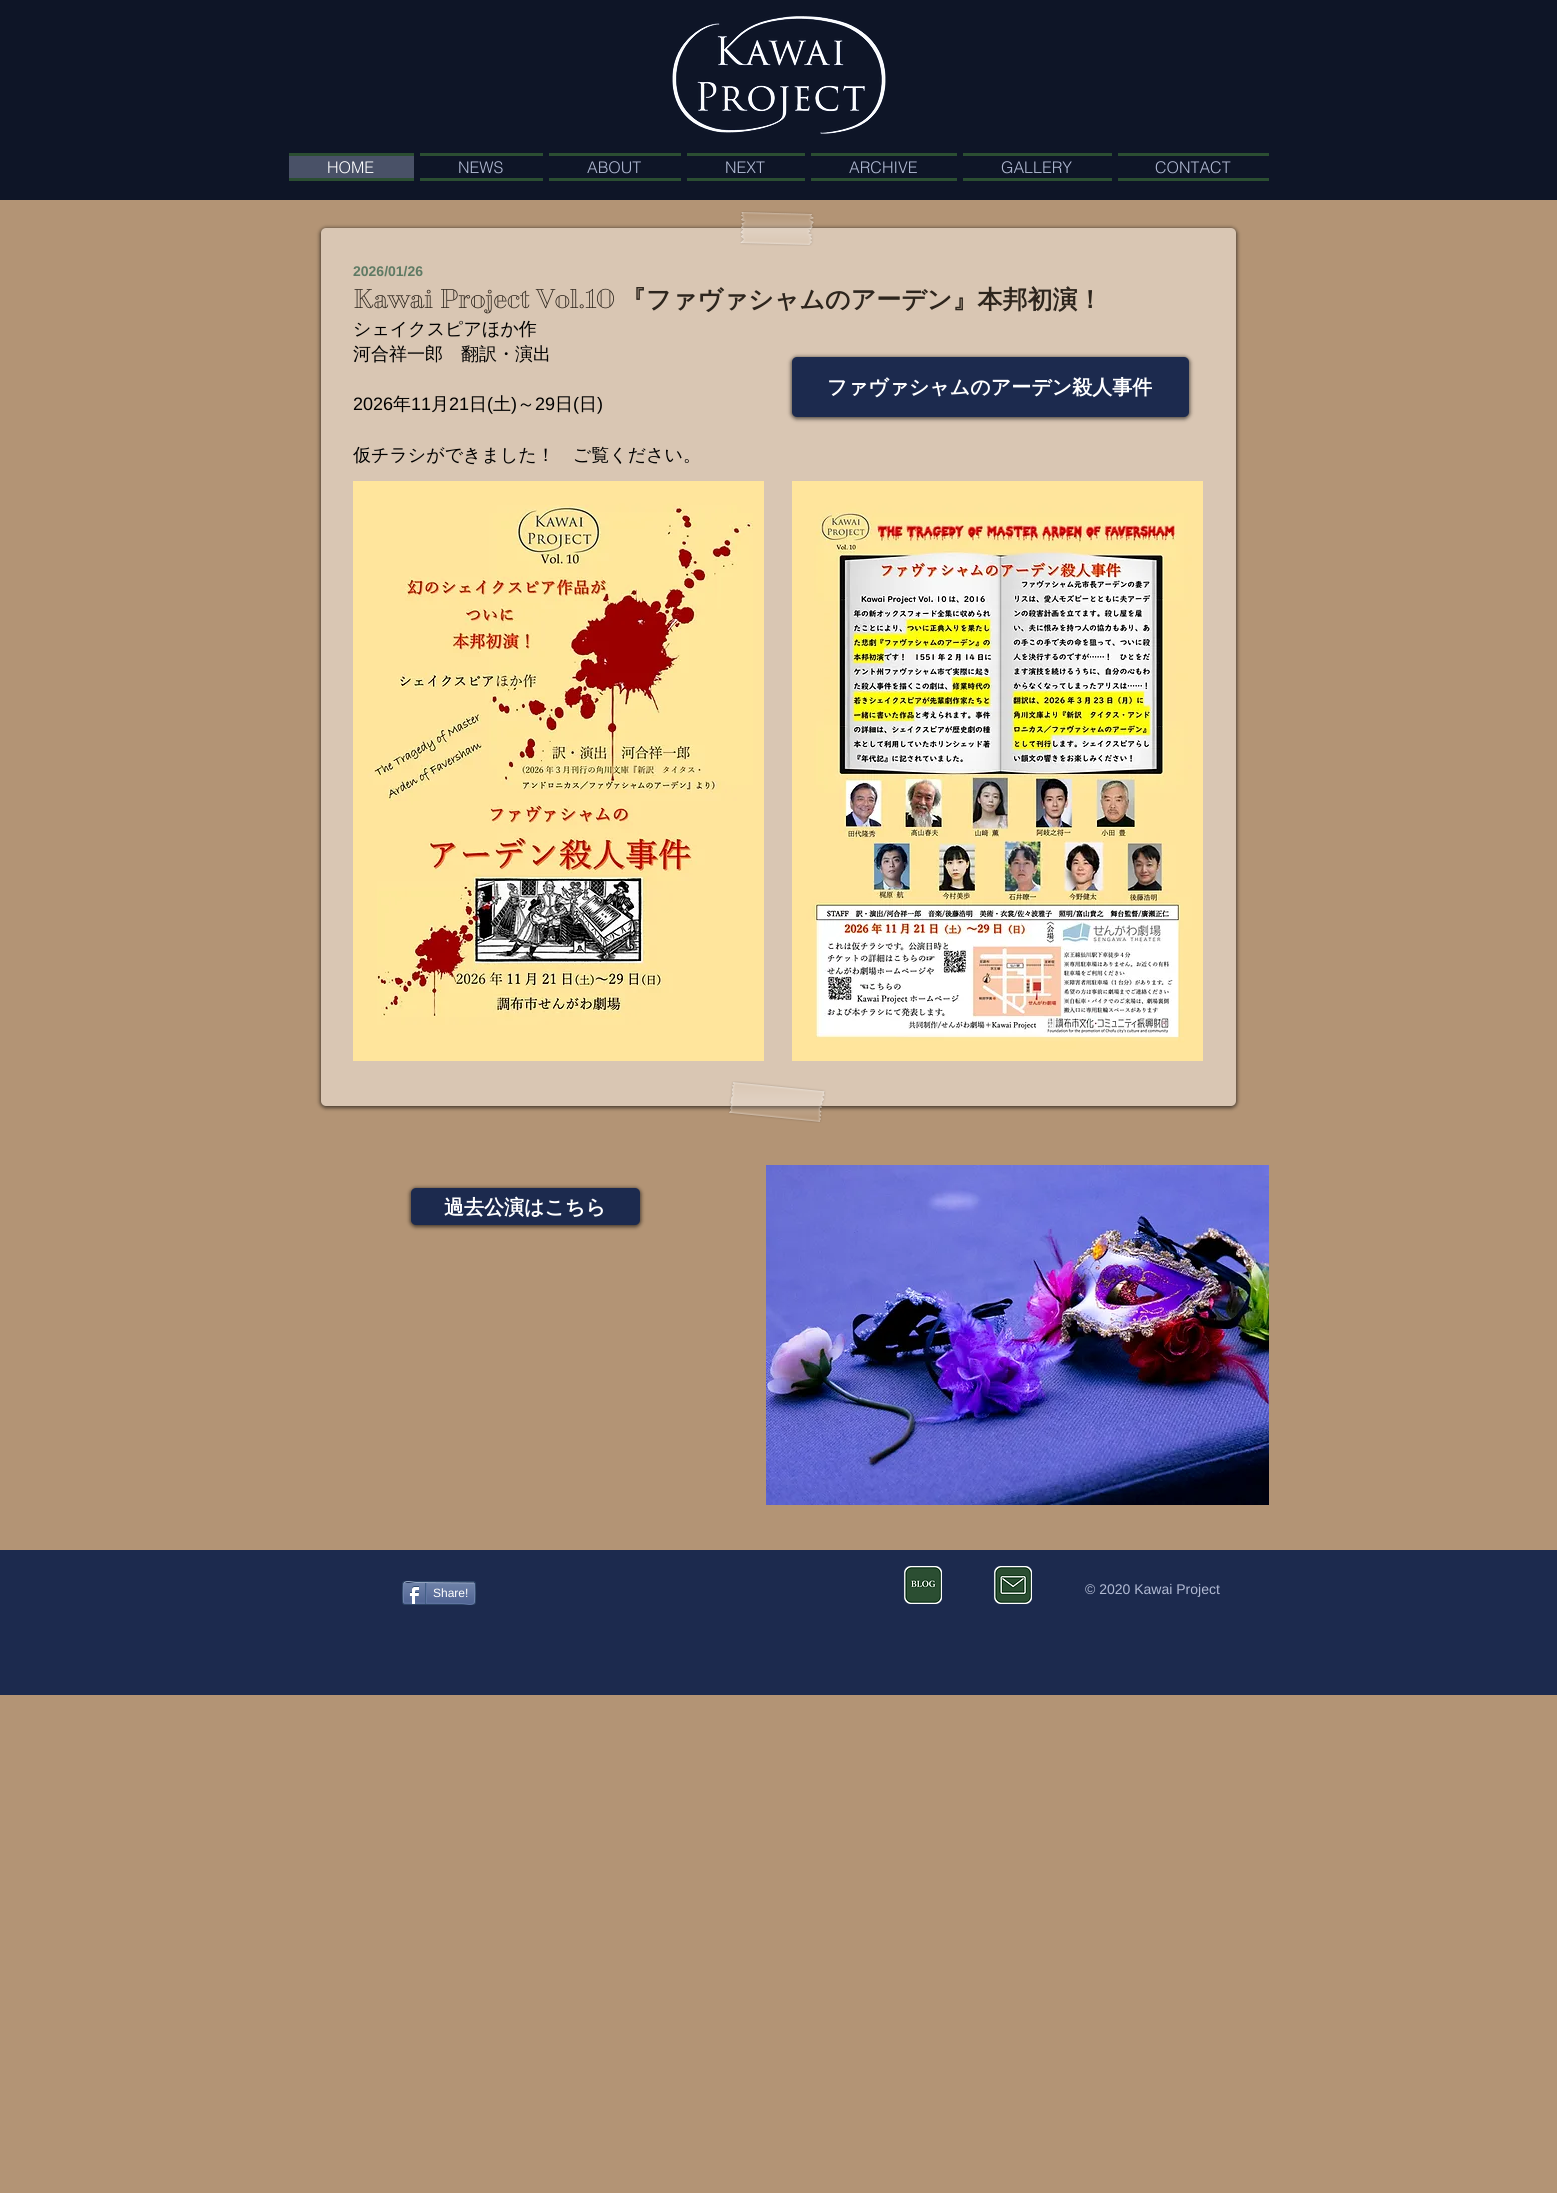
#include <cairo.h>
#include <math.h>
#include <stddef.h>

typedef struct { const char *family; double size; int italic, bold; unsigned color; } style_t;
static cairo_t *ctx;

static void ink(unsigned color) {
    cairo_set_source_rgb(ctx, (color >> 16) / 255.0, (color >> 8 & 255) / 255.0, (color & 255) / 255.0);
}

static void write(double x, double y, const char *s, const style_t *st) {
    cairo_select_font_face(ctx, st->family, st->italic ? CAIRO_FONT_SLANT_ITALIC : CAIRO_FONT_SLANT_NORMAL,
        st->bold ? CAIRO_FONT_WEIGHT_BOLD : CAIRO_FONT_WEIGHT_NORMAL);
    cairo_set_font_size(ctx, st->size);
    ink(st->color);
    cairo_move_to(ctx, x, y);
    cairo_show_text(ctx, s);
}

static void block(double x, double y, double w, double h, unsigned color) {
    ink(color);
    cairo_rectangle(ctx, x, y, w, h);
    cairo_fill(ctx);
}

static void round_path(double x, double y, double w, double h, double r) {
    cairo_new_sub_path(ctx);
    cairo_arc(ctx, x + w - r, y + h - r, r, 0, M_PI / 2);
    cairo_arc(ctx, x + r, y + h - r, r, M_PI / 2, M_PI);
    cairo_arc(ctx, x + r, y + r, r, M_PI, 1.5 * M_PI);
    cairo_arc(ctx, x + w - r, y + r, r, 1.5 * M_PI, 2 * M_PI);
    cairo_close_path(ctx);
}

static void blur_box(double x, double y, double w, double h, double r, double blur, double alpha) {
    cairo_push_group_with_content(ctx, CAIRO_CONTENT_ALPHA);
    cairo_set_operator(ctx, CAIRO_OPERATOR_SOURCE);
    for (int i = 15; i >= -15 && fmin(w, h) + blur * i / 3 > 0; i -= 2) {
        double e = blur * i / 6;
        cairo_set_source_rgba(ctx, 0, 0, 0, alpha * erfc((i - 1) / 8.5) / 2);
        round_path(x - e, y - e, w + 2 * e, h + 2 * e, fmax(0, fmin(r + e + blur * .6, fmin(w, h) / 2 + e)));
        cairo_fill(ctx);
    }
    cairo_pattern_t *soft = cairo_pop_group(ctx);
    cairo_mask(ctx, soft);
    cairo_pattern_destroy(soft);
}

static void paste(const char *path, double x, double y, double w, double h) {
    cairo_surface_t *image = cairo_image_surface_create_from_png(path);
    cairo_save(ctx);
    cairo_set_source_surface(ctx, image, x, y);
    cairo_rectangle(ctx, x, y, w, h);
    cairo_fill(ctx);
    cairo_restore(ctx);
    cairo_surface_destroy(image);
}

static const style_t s1 = {"helvetica Light", 16, 0, 0, 0xffffff};
static const style_t s2 = {"helvetica Light", 16, 0, 0, 0xb1bad3};
static const style_t s3 = {"Liberation Sans", 14, 0, 1, 0x5f7a64};
static const style_t s4 = {"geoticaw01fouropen", 25, 0, 1, 0x2d251d};
static const style_t s5 = {"WenQuanYi Zen Hei", 25, 0, 1, 0x2d251d};
static const style_t s6 = {"WenQuanYi Zen Hei Medium", 18, 0, 0, 0x000000};
static const style_t s7 = {"Liberation Sans", 18, 0, 0, 0x000000};
static const style_t s8 = {"WenQuanYi Zen Hei", 20, 0, 1, 0xffffff};
static const style_t s9 = {"Liberation Sans", 12, 0, 0, 0xffffff};
static const style_t s10 = {"Liberation Sans", 14, 0, 0, 0xb1bad3};

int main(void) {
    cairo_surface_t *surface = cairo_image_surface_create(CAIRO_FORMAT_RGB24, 1557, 2193);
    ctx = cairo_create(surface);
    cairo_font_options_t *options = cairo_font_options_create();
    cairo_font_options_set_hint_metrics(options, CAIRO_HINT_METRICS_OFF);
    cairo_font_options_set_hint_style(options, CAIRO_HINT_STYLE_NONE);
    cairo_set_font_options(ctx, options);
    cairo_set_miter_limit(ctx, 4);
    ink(0xb39475);
    cairo_paint(ctx);
    block(0, 0, 1557, 200, 0x0e1527);
    paste("pic1.png", 672, 16, 214, 118);
    block(289, 156, 125, 22, 0x495167);
    block(289, 153, 125, 3, 0x2b4e32);
    block(289, 178, 125, 3, 0x2b4e32);
    write(327, 173, "HOME", &s1);
    block(420, 153, 123, 3, 0x2b4e32);
    block(420, 178, 123, 3, 0x2b4e32);
    write(458, 173, "NEWS", &s2);
    block(549, 153, 132, 3, 0x2b4e32);
    block(549, 178, 132, 3, 0x2b4e32);
    write(587, 173, "ABOUT", &s2);
    block(687, 153, 118, 3, 0x2b4e32);
    block(687, 178, 118, 3, 0x2b4e32);
    write(725, 173, "NEXT", &s2);
    block(811, 153, 146, 3, 0x2b4e32);
    block(811, 178, 146, 3, 0x2b4e32);
    write(849, 173, "ARCHIVE", &s2);
    block(963, 153, 149, 3, 0x2b4e32);
    block(963, 178, 149, 3, 0x2b4e32);
    write(1001, 173, "GALLERY", &s2);
    block(1118, 153, 151, 3, 0x2b4e32);
    block(1118, 178, 151, 3, 0x2b4e32);
    write(1155, 173, "CONTACT", &s2);
    ink(0x000000);
    blur_box(320, 228, 917, 880, 6, 2, 0.6);
    ink(0xd9c6b3);
    round_path(321, 228, 915, 878, 5);
    cairo_fill(ctx);
    paste("pic2.png", 740, 211, 75, 35);
    write(353, 276, "2026/01/26", &s3);
    write(353, 308, "Kawai Project Vol.10", &s4);
    write(621, 308, "『ファヴァシャムのアーデン』本邦初演！", &s5);
    write(353, 335, "シェイクスピアほか作", &s6);
    write(353, 360, "河合祥一郎　翻訳・演出", &s6);
    write(353, 410, "2026", &s7);
    write(393, 410, "年", &s6);
    write(411, 410, "11", &s7);
    write(431, 410, "月", &s6);
    write(449, 410, "21", &s7);
    write(469, 410, "日", &s6);
    write(487, 410, "(", &s7);
    write(493, 410, "土", &s6);
    write(511, 410, ")", &s7);
    write(517, 410, "～", &s6);
    write(535, 410, "29", &s7);
    write(555, 410, "日", &s6);
    write(573, 410, "(", &s7);
    write(579, 410, "日", &s6);
    write(597, 410, ")", &s7);
    write(353, 461, "仮チラシができました！　ご覧ください。", &s6);
    ink(0x000000);
    blur_box(791, 357, 399, 62, 6, 2, 0.6);
    ink(0x1c2a4e);
    round_path(792, 357, 397, 60, 5);
    cairo_fill(ctx);
    write(827, 394, "ファヴァシャムのアーデン殺人事件", &s8);
    paste("pic3.png", 353, 481, 411, 580);
    paste("pic4.png", 792, 481, 411, 580);
    paste("pic5.png", 728, 1081, 98, 42);
    ink(0x000000);
    blur_box(410, 1188, 231, 39, 6, 2, 0.6);
    ink(0x1c2a4e);
    round_path(411, 1188, 229, 37, 5);
    cairo_fill(ctx);
    write(444, 1214, "過去公演はこちら", &s8);
    paste("pic6.png", 766, 1165, 503, 340);
    block(0, 1550, 1557, 145, 0x1c2a4e);
    round_path(402.5, 1581.5, 73, 23, 2.5);
    ink(0x2d4565);
    cairo_set_line_width(ctx, 1);
    cairo_stroke(ctx);
    paste("pic7.png", 403, 1583, 72, 21);
    cairo_new_path(ctx);
    cairo_move_to(ctx, 404, 1583);
    cairo_curve_to(ctx, 407, 1580, 412, 1582.5, 416.5, 1582.5);
    cairo_line_to(ctx, 474, 1583);
    ink(0x9aabc6);
    cairo_stroke(ctx);
    cairo_new_path(ctx);
    cairo_move_to(ctx, 474, 1583);
    cairo_curve_to(ctx, 475, 1583.5, 475, 1602.5, 474, 1603);
    ink(0x6f83ad);
    cairo_stroke(ctx);
    cairo_new_path(ctx);
    cairo_move_to(ctx, 474, 1603);
    cairo_curve_to(ctx, 471, 1606, 466, 1603.5, 461.5, 1603.5);
    cairo_line_to(ctx, 404, 1603);
    ink(0x6176a3);
    cairo_stroke(ctx);
    cairo_new_path(ctx);
    cairo_move_to(ctx, 404, 1603);
    cairo_curve_to(ctx, 403, 1602.5, 403, 1583.5, 404, 1583);
    ink(0x6f83ad);
    cairo_stroke(ctx);
    paste("pic8.png", 409, 1586, 10, 18);
    block(425, 1583, 1, 21, 0x425e85);
    write(433, 1597, "Share!", &s9);
    block(426, 1583, 1, 20, 0x6176a3);
    paste("pic9.png", 904, 1566, 38, 38);
    paste("pic10.png", 994, 1566, 38, 38);
    write(1085, 1594, "© 2020 Kawai Project", &s10);
    cairo_surface_write_to_png(surface, "screenshot.png");
    cairo_font_options_destroy(options);
    cairo_destroy(ctx);
    cairo_surface_destroy(surface);
    return 0;
}
